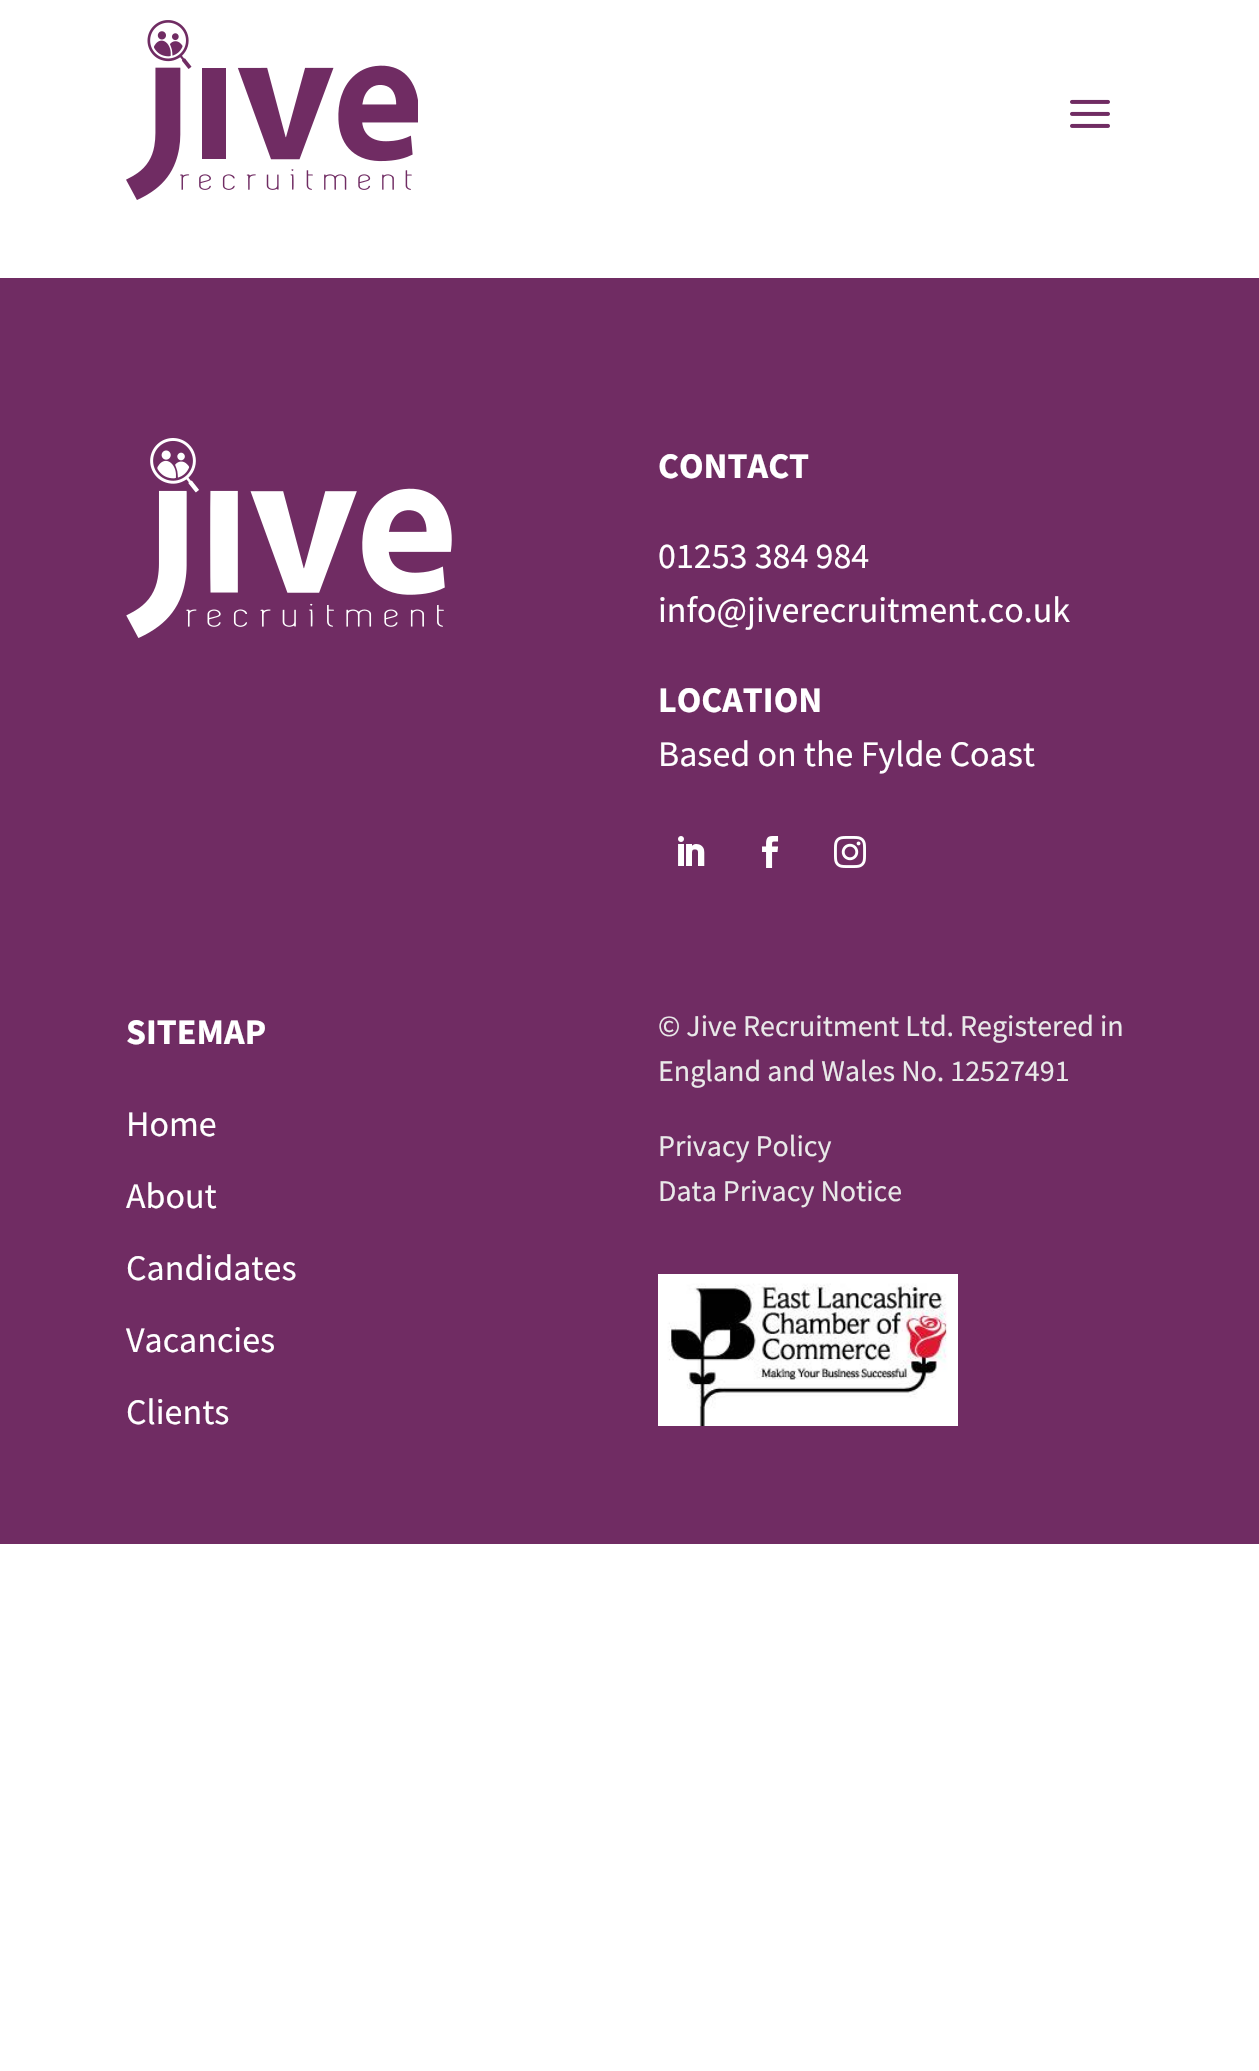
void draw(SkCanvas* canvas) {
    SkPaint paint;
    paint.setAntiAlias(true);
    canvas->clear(0xFFFFFFFF);
    canvas->drawImageRect(SkImages::DeferredFromEncodedData(SkData::MakeFromFileName("img1.png")), SkRect::MakeXYWH(126, 20, 292, 180), SkSamplingOptions());
    canvas->drawImageRect(SkImages::DeferredFromEncodedData(SkData::MakeFromFileName("img2.png")), SkRect::MakeXYWH(1070, 99, 40, 29), SkSamplingOptions());
    paint.setColor(0xFF702C63);
    canvas->drawRect(SkRect::MakeXYWH(0, 278, 1259, 1266), paint);
    canvas->drawImageRect(SkImages::DeferredFromEncodedData(SkData::MakeFromFileName("img3.png")), SkRect::MakeXYWH(126, 438, 326, 200), SkSamplingOptions());
    SkFont font1(fontMgr->matchFamilyStyle("Source Sans Pro", SkFontStyle::Bold()), 36);
    font1.setSubpixel(true);
    paint.setColor(0xFFFFFFFF);
    canvas->drawString("CONTACT", 658, 478, font1, paint);
    SkFont font2(fontMgr->matchFamilyStyle("Source Sans Pro", SkFontStyle::Normal()), 36);
    font2.setSubpixel(true);
    canvas->drawString("01253 384 984", 658, 568, font2, paint);
    canvas->drawString("info@jiverecruitment.co.uk", 658, 622, font2, paint);
    canvas->drawString("LOCATION", 658, 712, font1, paint);
    canvas->drawString("Based on the Fylde Coast", 658, 766, font2, paint);
    canvas->drawImageRect(SkImages::DeferredFromEncodedData(SkData::MakeFromFileName("img4.png")), SkRect::MakeXYWH(678, 836, 27, 30), SkSamplingOptions());
    canvas->drawImageRect(SkImages::DeferredFromEncodedData(SkData::MakeFromFileName("img5.png")), SkRect::MakeXYWH(762, 836, 17, 32), SkSamplingOptions());
    canvas->drawImageRect(SkImages::DeferredFromEncodedData(SkData::MakeFromFileName("img6.png")), SkRect::MakeXYWH(834, 836, 32, 32), SkSamplingOptions());
    canvas->drawString("SITEMAP", 126, 1044, font1, paint);
    canvas->drawString("Home", 126, 1136, font2, paint);
    canvas->drawString("About", 126, 1208, font2, paint);
    canvas->drawString("Candidates", 126, 1280, font2, paint);
    canvas->drawString("Vacancies", 126, 1352, font2, paint);
    canvas->drawString("Clients", 126, 1424, font2, paint);
    SkFont font3(fontMgr->matchFamilyStyle("Source Sans Pro", SkFontStyle::Normal()), 30);
    font3.setSubpixel(true);
    paint.setColor(0xFFE9E9E9);
    canvas->drawString("© Jive Recruitment Ltd. Registered in", 658, 1036, font3, paint);
    canvas->drawString("England and Wales No. 12527491", 658, 1081, font3, paint);
    canvas->drawString("Privacy Policy", 658, 1156, font3, paint);
    canvas->drawString("Data Privacy Notice", 658, 1201, font3, paint);
    canvas->drawImageRect(SkImages::DeferredFromEncodedData(SkData::MakeFromFileName("img7.png")), SkRect::MakeXYWH(658, 1274, 300, 152), SkSamplingOptions());
}
